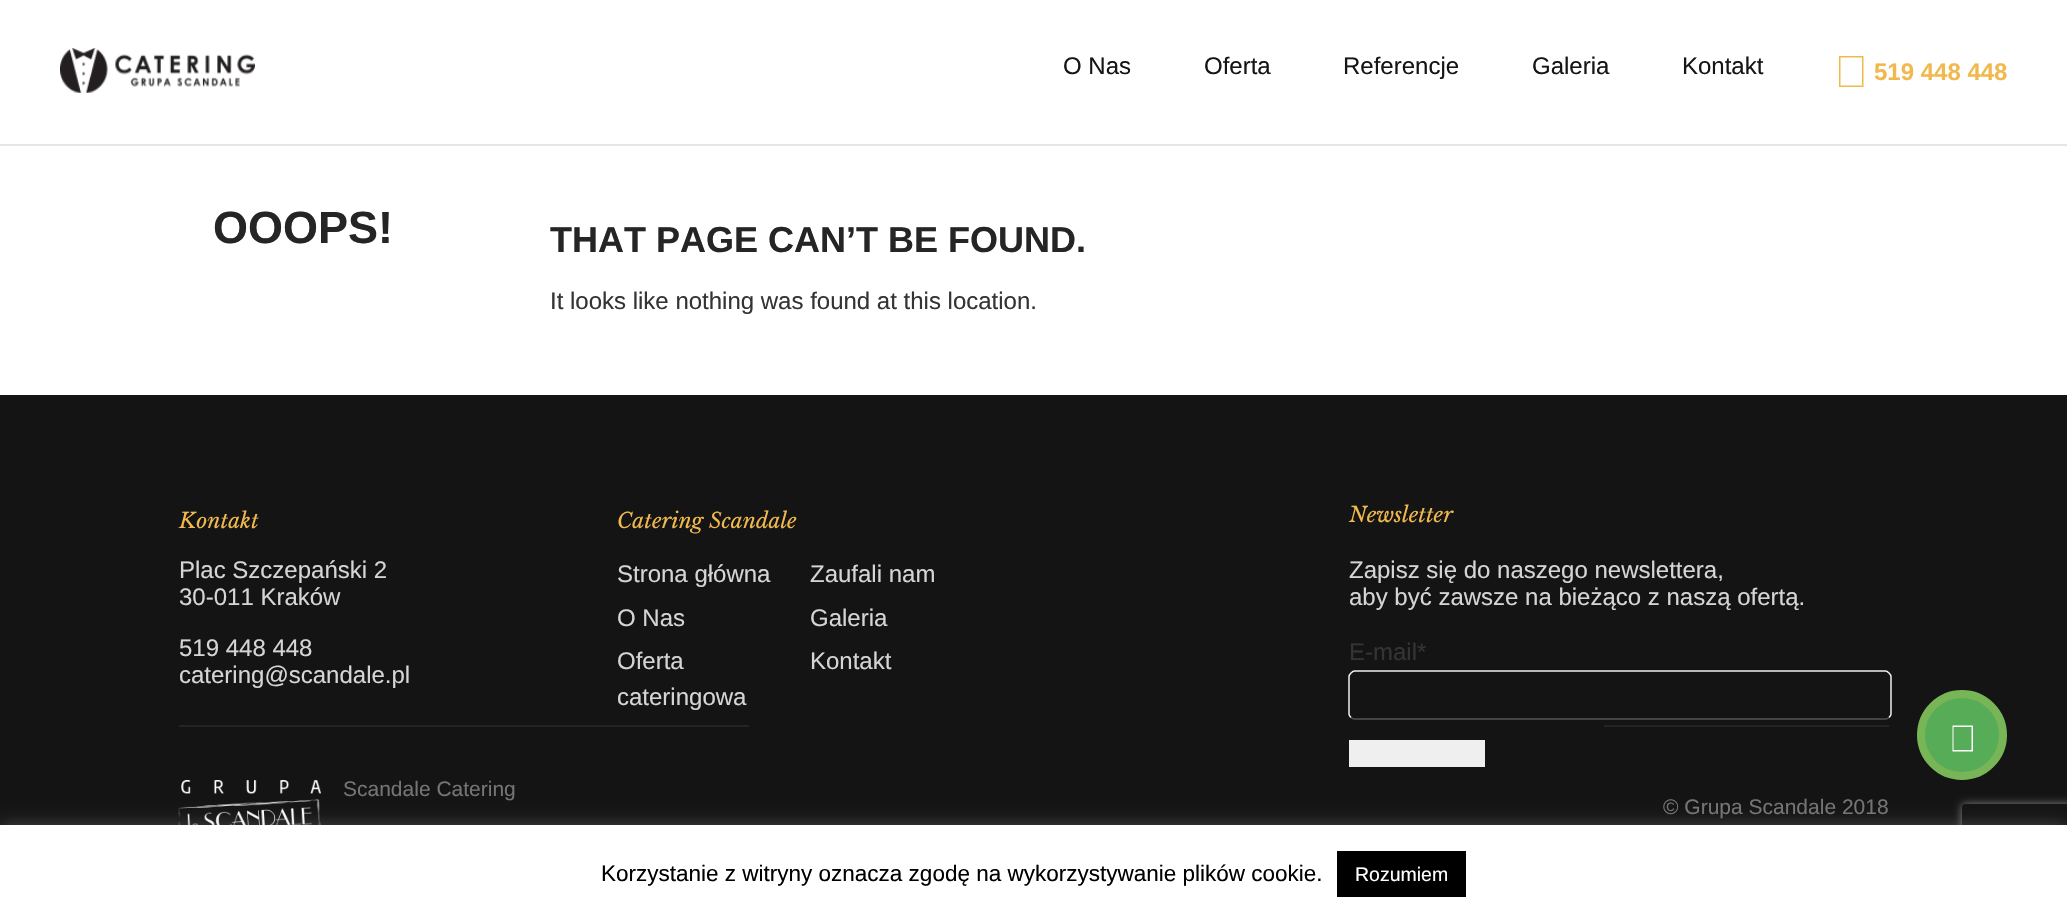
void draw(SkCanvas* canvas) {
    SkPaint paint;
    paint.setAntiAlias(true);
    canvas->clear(0xFFFFFFFF);
    paint.setColor(0xFFE5E5E5);
    canvas->drawRect(SkRect::MakeXYWH(0, 144, 2067, 2), paint);
    canvas->drawImageRect(SkImages::DeferredFromEncodedData(SkData::MakeFromFileName("img1.png")), SkRect::MakeXYWH(60, 48, 195, 45), SkSamplingOptions());
    SkFont font1(fontMgr->matchFamilyStyle("Liberation Sans", SkFontStyle::Normal()), 24);
    font1.setSubpixel(true);
    paint.setColor(0xFF151515);
    canvas->drawString("O Nas", 1063, 74, font1, paint);
    canvas->drawString("Oferta", 1204, 74, font1, paint);
    canvas->drawString("Referencje", 1343, 74, font1, paint);
    canvas->drawString("Galeria", 1532, 74, font1, paint);
    canvas->drawString("Kontakt", 1682, 74, font1, paint);
    paint.setColor(0xFFF1B94D);
    canvas->drawPath(SkPathBuilder().moveTo(1839, 56).lineTo(1863.5f, 56).lineTo(1863.5f, 87).lineTo(1839, 87).close().moveTo(1840.5f, 57.5f).lineTo(1840.5f, 85.5f).lineTo(1862, 85.5f).lineTo(1862, 57.5f).close().detach(), paint);
    SkFont font2(fontMgr->matchFamilyStyle("Liberation Sans", SkFontStyle::Bold()), 24);
    font2.setSubpixel(true);
    canvas->drawString("519 448 448", 1874, 80, font2, paint);
    SkFont font3(fontMgr->matchFamilyStyle("Liberation Sans", SkFontStyle::Bold()), 45);
    font3.setSubpixel(true);
    paint.setColor(0xFF252525);
    canvas->drawString("OOOPS!", 213, 243, font3, paint);
    SkFont font4(fontMgr->matchFamilyStyle("Liberation Sans", SkFontStyle::Bold()), 36);
    font4.setSubpixel(true);
    canvas->drawString("THAT PAGE CAN’T BE FOUND.", 550, 252, font4, paint);
    paint.setColor(0xFF343434);
    canvas->drawString("It looks like nothing was found at this location.", 550, 309, font1, paint);
    paint.setColor(0xFF141414);
    canvas->drawRect(SkRect::MakeXYWH(0, 395, 2067, 430), paint);
    SkFont font5(fontMgr->matchFamilyStyle("Libre Baskerville", SkFontStyle::Italic()), 21);
    font5.setSubpixel(true);
    paint.setColor(0xFFF1B94D);
    canvas->drawString("Kontakt", 179, 528, font5, paint);
    paint.setColor(0xFFD5D5D5);
    canvas->drawString("Plac Szczepański 2", 179, 578, font1, paint);
    canvas->drawString("30-011 Kraków", 179, 605, font1, paint);
    canvas->drawString("519 448 448", 179, 656, font1, paint);
    canvas->drawString("catering@scandale.pl", 179, 683, font1, paint);
    paint.setColor(0xFFF1B94D);
    canvas->drawString("Catering Scandale", 617, 528, font5, paint);
    paint.setColor(0xFFD5D5D5);
    canvas->drawString("Strona główna", 617, 582, font1, paint);
    canvas->drawString("Zaufali nam", 810, 582, font1, paint);
    canvas->drawString("O Nas", 617, 626, font1, paint);
    canvas->drawString("Galeria", 810, 626, font1, paint);
    canvas->drawString("Oferta", 617, 669, font1, paint);
    canvas->drawString("cateringowa", 617, 705, font1, paint);
    canvas->drawString("Kontakt", 810, 669, font1, paint);
    paint.setColor(0xFFF1B94D);
    canvas->drawString("Newsletter", 1349, 522, font5, paint);
    paint.setColor(0xFFD5D5D5);
    canvas->drawString("Zapisz się do naszego newslettera,", 1349, 578, font1, paint);
    canvas->drawString("aby być zawsze na bieżąco z naszą ofertą.", 1349, 605, font1, paint);
    paint.setColor(0xFF343434);
    canvas->drawString("E-mail*", 1349, 660, font1, paint);
    paint.setStyle(SkPaint::kStroke_Style);
    paint.setStrokeWidth(1.5f);
    paint.setColor(0xFF545454);
    canvas->drawPath(SkPathBuilder().moveTo(1889, 717.5f).cubicTo(1888, 718.5f, 1887, 719, 1885.5f, 719).lineTo(1354.5f, 719).cubicTo(1353, 719, 1352, 718.5f, 1351, 717.5f).detach(), paint);
    paint.setColor(0xFFEEEEEE);
    canvas->drawPath(SkPathBuilder().moveTo(1351, 717.5f).cubicTo(1350, 716.5f, 1349, 715.5f, 1349, 714).lineTo(1349, 676.5f).cubicTo(1349, 675, 1350, 674, 1351, 673).cubicTo(1352, 672, 1353, 671, 1354.5f, 671).lineTo(1885.5f, 671).cubicTo(1887, 671, 1888, 672, 1889, 673).cubicTo(1890, 674, 1891, 675, 1891, 676.5f).lineTo(1891, 714).cubicTo(1891, 715.5f, 1890, 716.5f, 1889, 717.5f).detach(), paint);
    paint.setStyle(SkPaint::kFill_Style);
    paint.setColor(0xFFEFEFEF);
    canvas->drawRect(SkRect::MakeXYWH(1349, 740, 136, 27), paint);
    paint.setColor(0xFF242424);
    canvas->drawRect(SkRect::MakeXYWH(179, 725, 570, 2), paint);
    canvas->drawRect(SkRect::MakeXYWH(1604, 725, 285, 2), paint);
    canvas->drawImageRect(SkImages::DeferredFromEncodedData(SkData::MakeFromFileName("img2.png")), SkRect::MakeXYWH(178, 780, 143, 45), SkSamplingOptions());
    SkFont font6(fontMgr->matchFamilyStyle("Liberation Sans", SkFontStyle::Normal()), 21);
    font6.setSubpixel(true);
    paint.setColor(0xFF747474);
    canvas->drawString("Scandale Catering", 343, 796, font6, paint);
    canvas->drawString("© Grupa Scandale 2018", 1663, 814, font6, paint);
    paint.setColor(0xFF57AC58);
    canvas->drawCircle(1962, 735, 41, paint);
    paint.setStyle(SkPaint::kStroke_Style);
    paint.setStrokeWidth(8);
    paint.setColor(0xFF77B557);
    canvas->drawCircle(1962, 735, 41, paint);
    paint.setStyle(SkPaint::kFill_Style);
    paint.setColor(0xFFFFFFFF);
    canvas->drawPath(SkPathBuilder().moveTo(1952.5f, 725.5f).lineTo(1973, 725.5f).lineTo(1973, 751.5f).lineTo(1952.5f, 751.5f).close().moveTo(1953.5f, 727).lineTo(1953.5f, 750).lineTo(1971.5f, 750).lineTo(1971.5f, 727).close().detach(), paint);
    paint.setColor(0x4DACABAB);
    paint.setMaskFilter(SkMaskFilter::MakeBlur(kNormal_SkBlurStyle, 7.5f));
    canvas->drawRect(SkRect::MakeXYWH(0, 824, 2067, 90), paint);
    paint.setMaskFilter(nullptr);
    canvas->save();
    canvas->clipPath(SkPathBuilder(SkPathFillType::kEvenOdd).moveTo(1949, 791).lineTo(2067, 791).lineTo(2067, 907).lineTo(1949, 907).close().moveTo(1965, 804).lineTo(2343, 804).cubicTo(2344.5f, 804, 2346, 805.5f, 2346, 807).lineTo(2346, 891).cubicTo(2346, 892.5f, 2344.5f, 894, 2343, 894).lineTo(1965, 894).cubicTo(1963.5f, 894, 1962, 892.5f, 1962, 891).lineTo(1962, 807).cubicTo(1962, 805.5f, 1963.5f, 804, 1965, 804).close().detach(), true);
    paint.setColor(0xFF808080);
    paint.setMaskFilter(SkMaskFilter::MakeBlur(kNormal_SkBlurStyle, 4));
    canvas->drawRoundRect(SkRect::MakeXYWH(1962, 804, 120, 90), 3, 3, paint);
    paint.setMaskFilter(nullptr);
    canvas->restore();
    paint.setColor(0xFFFFFFFF);
    canvas->drawRect(SkRect::MakeXYWH(0, 825, 2067, 90), paint);
    SkFont font7(fontMgr->matchFamilyStyle("Liberation Sans", SkFontStyle::Normal()), 22.5f);
    font7.setSubpixel(true);
    paint.setColor(0xFF000000);
    canvas->drawString("Korzystanie z witryny oznacza zgodę na wykorzystywanie plików cookie.", 601, 881, font7, paint);
    canvas->drawRect(SkRect::MakeXYWH(1337, 851, 129, 46), paint);
    SkFont font8(fontMgr->matchFamilyStyle("Liberation Sans", SkFontStyle::Normal()), 19.5f);
    font8.setSubpixel(true);
    paint.setColor(0xFFFFFFFF);
    canvas->drawString("Rozumiem", 1355, 881, font8, paint);
}
